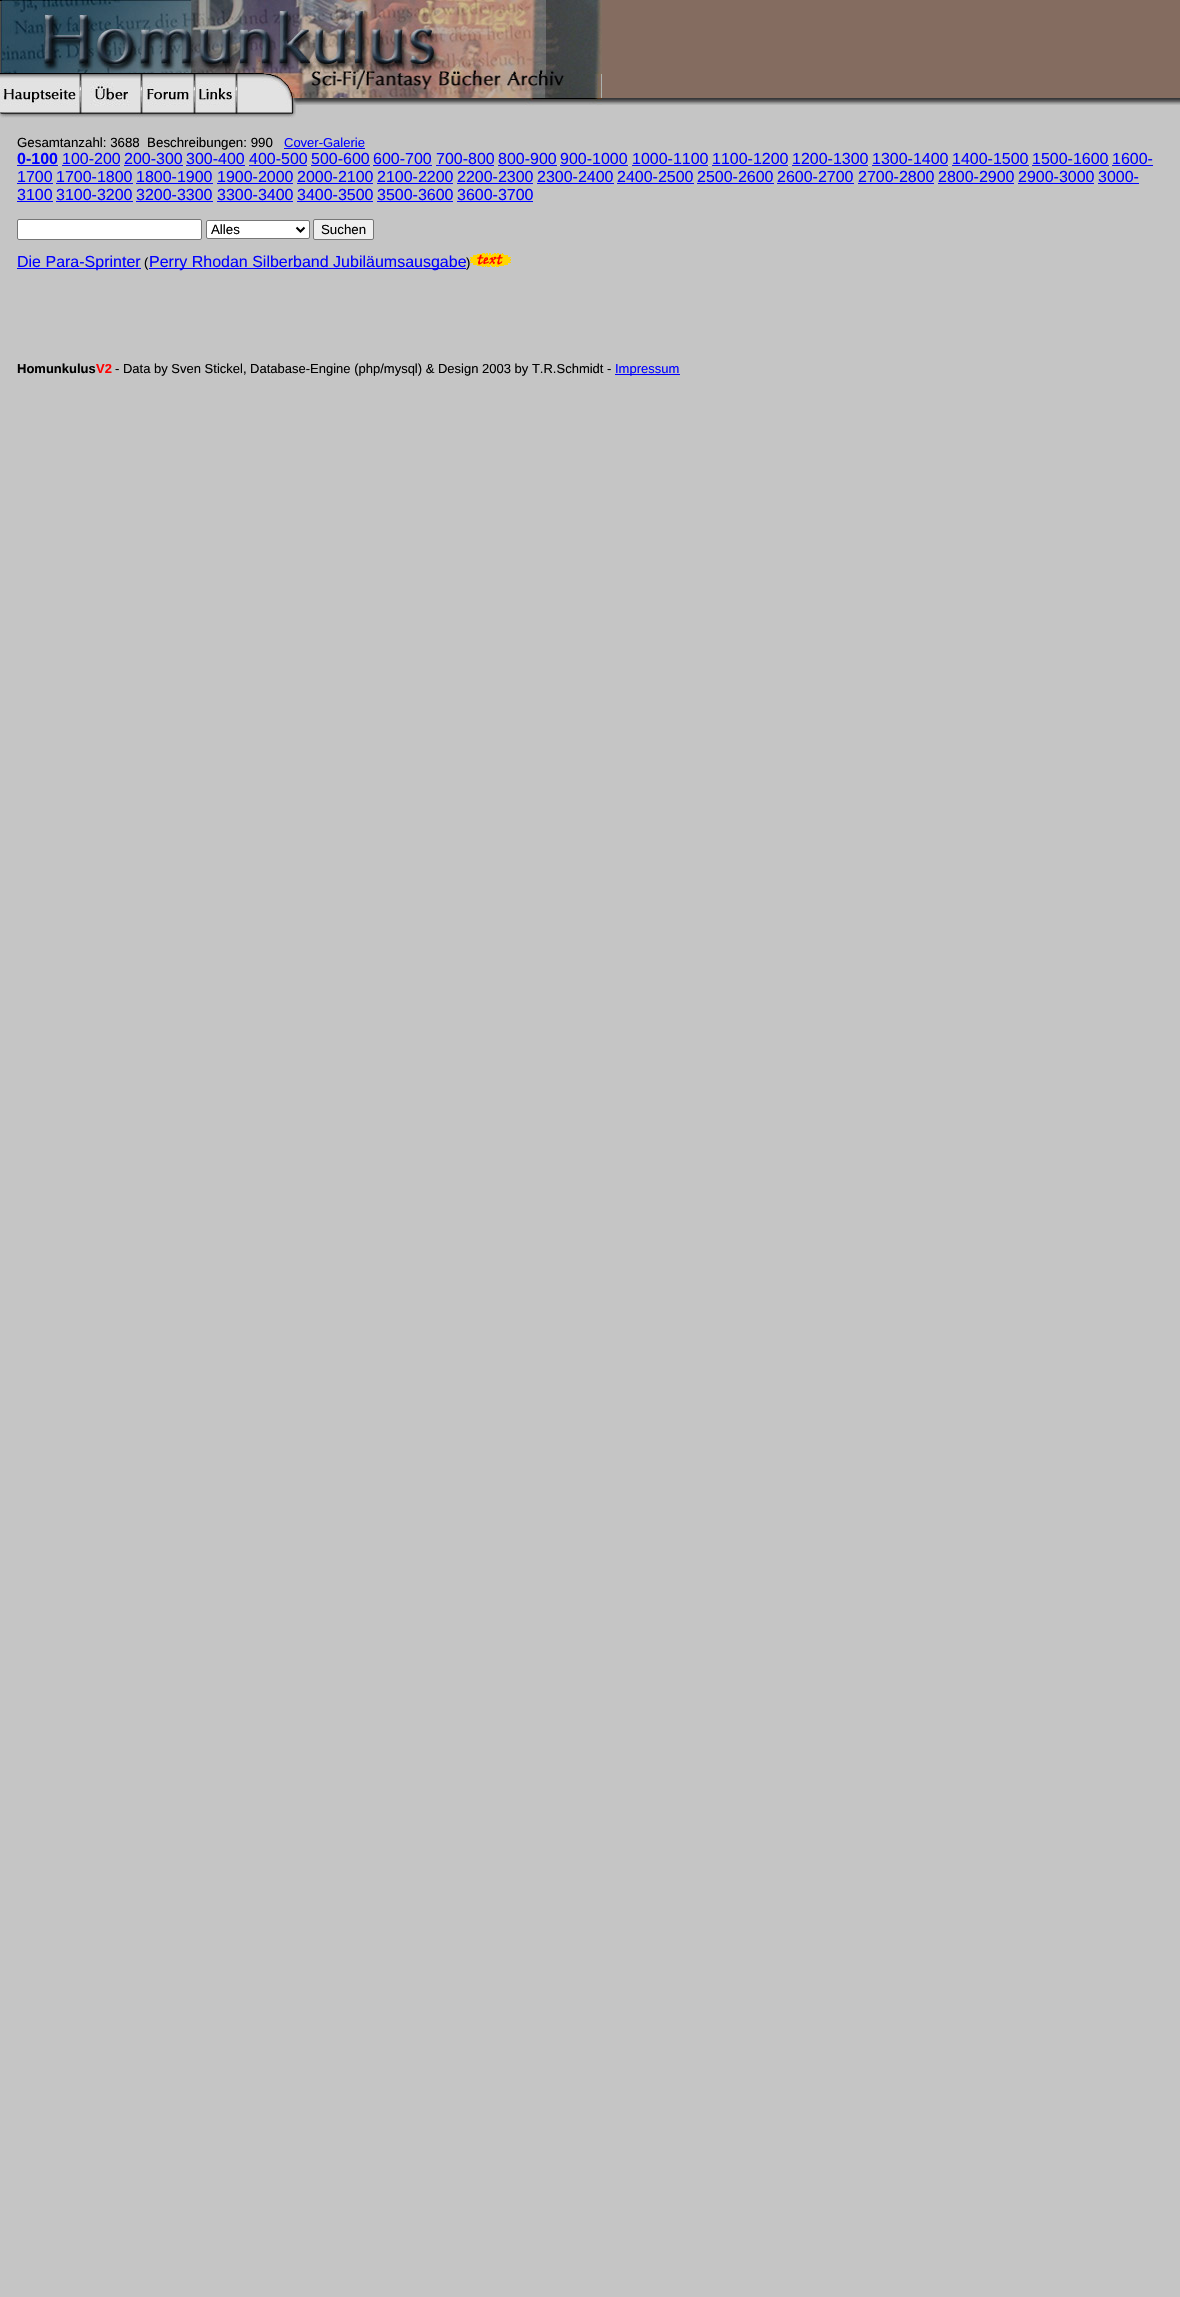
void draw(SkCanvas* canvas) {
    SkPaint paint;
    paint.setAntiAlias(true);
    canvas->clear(0xFFC5C5C5);
    canvas->drawImageRect(SkImages::DeferredFromEncodedData(SkData::MakeFromFileName("img1.png")), SkRect::MakeXYWH(602, 0, 578, 105), SkSamplingOptions());
    canvas->drawImageRect(SkImages::DeferredFromEncodedData(SkData::MakeFromFileName("img2.png")), SkRect::MakeXYWH(0, 0, 602, 74), SkSamplingOptions());
    canvas->drawImageRect(SkImages::DeferredFromEncodedData(SkData::MakeFromFileName("img3.png")), SkRect::MakeXYWH(0, 74, 79, 38), SkSamplingOptions());
    canvas->drawImageRect(SkImages::DeferredFromEncodedData(SkData::MakeFromFileName("img4.png")), SkRect::MakeXYWH(79, 74, 3, 38), SkSamplingOptions());
    canvas->drawImageRect(SkImages::DeferredFromEncodedData(SkData::MakeFromFileName("img5.png")), SkRect::MakeXYWH(82, 74, 58, 38), SkSamplingOptions());
    canvas->drawImageRect(SkImages::DeferredFromEncodedData(SkData::MakeFromFileName("img4.png")), SkRect::MakeXYWH(140, 74, 3, 38), SkSamplingOptions());
    canvas->drawImageRect(SkImages::DeferredFromEncodedData(SkData::MakeFromFileName("img6.png")), SkRect::MakeXYWH(143, 74, 50, 38), SkSamplingOptions());
    canvas->drawImageRect(SkImages::DeferredFromEncodedData(SkData::MakeFromFileName("img4.png")), SkRect::MakeXYWH(193, 74, 3, 38), SkSamplingOptions());
    canvas->drawImageRect(SkImages::DeferredFromEncodedData(SkData::MakeFromFileName("img7.png")), SkRect::MakeXYWH(196, 74, 39, 38), SkSamplingOptions());
    canvas->drawImageRect(SkImages::DeferredFromEncodedData(SkData::MakeFromFileName("img4.png")), SkRect::MakeXYWH(235, 74, 3, 38), SkSamplingOptions());
    canvas->drawImageRect(SkImages::DeferredFromEncodedData(SkData::MakeFromFileName("img8.png")), SkRect::MakeXYWH(238, 74, 364, 38), SkSamplingOptions());
    canvas->drawImageRect(SkImages::DeferredFromEncodedData(SkData::MakeFromFileName("img9.png")), SkRect::MakeXYWH(0, 112, 296, 6), SkSamplingOptions());
    SkFont font1(fontMgr->matchFamilyStyle("Liberation Sans", SkFontStyle::Normal()), 13.3f);
    font1.setSubpixel(true);
    paint.setColor(0xFF000000);
    canvas->drawString("Gesamtanzahl: 3688  Beschreibungen: 990", 17, 147, font1, paint);
    SkFont font2(fontMgr->matchFamilyStyle("Liberation Sans", SkFontStyle::Normal()), 13);
    font2.setSubpixel(true);
    paint.setColor(0xFF0000FF);
    canvas->drawString("Cover-Galerie", 284, 147, font2, paint);
    canvas->drawRect(SkRect::MakeXYWH(284, 148, 81, 1), paint);
    SkFont font3(fontMgr->matchFamilyStyle("Liberation Sans", SkFontStyle::Bold()), 16);
    font3.setSubpixel(true);
    canvas->drawString("0-100", 17, 164, font3, paint);
    canvas->drawRect(SkRect::MakeXYWH(17, 165, 41, 1), paint);
    SkFont font4(fontMgr->matchFamilyStyle("Liberation Sans", SkFontStyle::Normal()), 16);
    font4.setSubpixel(true);
    canvas->drawString("100-200", 62, 164, font4, paint);
    canvas->drawRect(SkRect::MakeXYWH(62, 165, 58, 1), paint);
    canvas->drawString("200-300", 124, 164, font4, paint);
    canvas->drawRect(SkRect::MakeXYWH(124, 165, 59, 1), paint);
    canvas->drawString("300-400", 186, 164, font4, paint);
    canvas->drawRect(SkRect::MakeXYWH(186, 165, 59, 1), paint);
    canvas->drawString("400-500", 249, 164, font4, paint);
    canvas->drawRect(SkRect::MakeXYWH(249, 165, 58, 1), paint);
    canvas->drawString("500-600", 311, 164, font4, paint);
    canvas->drawRect(SkRect::MakeXYWH(311, 165, 59, 1), paint);
    canvas->drawString("600-700", 373, 164, font4, paint);
    canvas->drawRect(SkRect::MakeXYWH(373, 165, 59, 1), paint);
    canvas->drawString("700-800", 436, 164, font4, paint);
    canvas->drawRect(SkRect::MakeXYWH(436, 165, 58, 1), paint);
    canvas->drawString("800-900", 498, 164, font4, paint);
    canvas->drawRect(SkRect::MakeXYWH(498, 165, 59, 1), paint);
    canvas->drawString("900-1000", 560, 164, font4, paint);
    canvas->drawRect(SkRect::MakeXYWH(560, 165, 68, 1), paint);
    canvas->drawString("1000-1100", 632, 164, font4, paint);
    canvas->drawRect(SkRect::MakeXYWH(632, 165, 76, 1), paint);
    canvas->drawString("1100-1200", 712, 164, font4, paint);
    canvas->drawRect(SkRect::MakeXYWH(712, 165, 76, 1), paint);
    canvas->drawString("1200-1300", 792, 164, font4, paint);
    canvas->drawRect(SkRect::MakeXYWH(792, 165, 76, 1), paint);
    canvas->drawString("1300-1400", 872, 164, font4, paint);
    canvas->drawRect(SkRect::MakeXYWH(872, 165, 76, 1), paint);
    canvas->drawString("1400-1500", 952, 164, font4, paint);
    canvas->drawRect(SkRect::MakeXYWH(952, 165, 77, 1), paint);
    canvas->drawString("1500-1600", 1032, 164, font4, paint);
    canvas->drawRect(SkRect::MakeXYWH(1032, 165, 77, 1), paint);
    canvas->drawString("1600-", 1112, 164, font4, paint);
    canvas->drawRect(SkRect::MakeXYWH(1112, 165, 41, 1), paint);
    canvas->drawString("1700", 17, 182, font4, paint);
    canvas->drawRect(SkRect::MakeXYWH(17, 183, 36, 1), paint);
    canvas->drawString("1700-1800", 56, 182, font4, paint);
    canvas->drawRect(SkRect::MakeXYWH(56, 183, 77, 1), paint);
    canvas->drawString("1800-1900", 136, 182, font4, paint);
    canvas->drawRect(SkRect::MakeXYWH(136, 183, 77, 1), paint);
    canvas->drawString("1900-2000", 217, 182, font4, paint);
    canvas->drawRect(SkRect::MakeXYWH(217, 183, 76, 1), paint);
    canvas->drawString("2000-2100", 297, 182, font4, paint);
    canvas->drawRect(SkRect::MakeXYWH(297, 183, 76, 1), paint);
    canvas->drawString("2100-2200", 377, 182, font4, paint);
    canvas->drawRect(SkRect::MakeXYWH(377, 183, 76, 1), paint);
    canvas->drawString("2200-2300", 457, 182, font4, paint);
    canvas->drawRect(SkRect::MakeXYWH(457, 183, 76, 1), paint);
    canvas->drawString("2300-2400", 537, 182, font4, paint);
    canvas->drawRect(SkRect::MakeXYWH(537, 183, 77, 1), paint);
    canvas->drawString("2400-2500", 617, 182, font4, paint);
    canvas->drawRect(SkRect::MakeXYWH(617, 183, 77, 1), paint);
    canvas->drawString("2500-2600", 697, 182, font4, paint);
    canvas->drawRect(SkRect::MakeXYWH(697, 183, 77, 1), paint);
    canvas->drawString("2600-2700", 777, 182, font4, paint);
    canvas->drawRect(SkRect::MakeXYWH(777, 183, 77, 1), paint);
    canvas->drawString("2700-2800", 858, 182, font4, paint);
    canvas->drawRect(SkRect::MakeXYWH(858, 183, 76, 1), paint);
    canvas->drawString("2800-2900", 938, 182, font4, paint);
    canvas->drawRect(SkRect::MakeXYWH(938, 183, 76, 1), paint);
    canvas->drawString("2900-3000", 1018, 182, font4, paint);
    canvas->drawRect(SkRect::MakeXYWH(1018, 183, 76, 1), paint);
    canvas->drawString("3000-", 1098, 182, font4, paint);
    canvas->drawRect(SkRect::MakeXYWH(1098, 183, 41, 1), paint);
    canvas->drawString("3100", 17, 200, font4, paint);
    canvas->drawRect(SkRect::MakeXYWH(17, 201, 36, 1), paint);
    canvas->drawString("3100-3200", 56, 200, font4, paint);
    canvas->drawRect(SkRect::MakeXYWH(56, 201, 77, 1), paint);
    canvas->drawString("3200-3300", 136, 200, font4, paint);
    canvas->drawRect(SkRect::MakeXYWH(136, 201, 77, 1), paint);
    canvas->drawString("3300-3400", 217, 200, font4, paint);
    canvas->drawRect(SkRect::MakeXYWH(217, 201, 76, 1), paint);
    canvas->drawString("3400-3500", 297, 200, font4, paint);
    canvas->drawRect(SkRect::MakeXYWH(297, 201, 76, 1), paint);
    canvas->drawString("3500-3600", 377, 200, font4, paint);
    canvas->drawRect(SkRect::MakeXYWH(377, 201, 76, 1), paint);
    canvas->drawString("3600-3700", 457, 200, font4, paint);
    canvas->drawRect(SkRect::MakeXYWH(457, 201, 76, 1), paint);
    paint.setColor(0xFFFFFFFF);
    canvas->drawRoundRect(SkRect::MakeXYWH(17.5f, 219.5f, 184, 20), 1.5f, 1.5f, paint);
    paint.setStyle(SkPaint::kStroke_Style);
    paint.setStrokeWidth(1);
    paint.setColor(0xFF767676);
    canvas->drawRoundRect(SkRect::MakeXYWH(17.5f, 219.5f, 184, 20), 1.5f, 1.5f, paint);
    paint.setStyle(SkPaint::kFill_Style);
    paint.setColor(0xFFFFFFFF);
    canvas->drawRoundRect(SkRect::MakeXYWH(206.5f, 220.5f, 103, 18), 1.5f, 1.5f, paint);
    paint.setStyle(SkPaint::kStroke_Style);
    paint.setColor(0xFF767676);
    canvas->drawRoundRect(SkRect::MakeXYWH(206.5f, 220.5f, 103, 18), 1.5f, 1.5f, paint);
    paint.setStrokeWidth(2);
    paint.setColor(0xFF000000);
    canvas->drawPath(SkPathBuilder().moveTo(296.5f, 227.5f).lineTo(300.5f, 231.5f).lineTo(304.5f, 227.5f).detach(), paint);
    paint.setStyle(SkPaint::kFill_Style);
    canvas->drawString("Alles", 211, 234, font1, paint);
    paint.setColor(0xFFEFEFEF);
    canvas->drawRoundRect(SkRect::MakeXYWH(313.5f, 219.5f, 60, 20), 1.5f, 1.5f, paint);
    paint.setStyle(SkPaint::kStroke_Style);
    paint.setStrokeWidth(1);
    paint.setColor(0xFF767676);
    canvas->drawRoundRect(SkRect::MakeXYWH(313.5f, 219.5f, 60, 20), 1.5f, 1.5f, paint);
    paint.setStyle(SkPaint::kFill_Style);
    paint.setColor(0xFF000000);
    canvas->drawString("Suchen", 321, 234, font1, paint);
    paint.setColor(0xFF0000FF);
    canvas->drawRect(SkRect::MakeXYWH(17, 268, 124, 1), paint);
    canvas->drawString("Die Para-Sprinter", 17, 267, font4, paint);
    paint.setColor(0xFF000000);
    canvas->drawString("(", 144, 267, font2, paint);
    paint.setColor(0xFF0000FF);
    canvas->drawRect(SkRect::MakeXYWH(149, 268, 317, 1), paint);
    canvas->drawString("Perry Rhodan Silberband Jubiläumsausgabe", 149, 267, font4, paint);
    paint.setColor(0xFF000000);
    canvas->drawString(")", 466, 267, font2, paint);
    canvas->drawImageRect(SkImages::DeferredFromEncodedData(SkData::MakeFromFileName("img10.png")), SkRect::MakeXYWH(470, 253, 41, 14), SkSamplingOptions());
    SkFont font5(fontMgr->matchFamilyStyle("Liberation Sans", SkFontStyle::Bold()), 13);
    font5.setSubpixel(true);
    canvas->drawString("Homunkulus", 17, 373, font5, paint);
    paint.setColor(0xFFFF0000);
    canvas->drawString("V2", 96, 373, font5, paint);
    paint.setColor(0xFF000000);
    canvas->drawString("- Data by Sven Stickel, Database-Engine (php/mysql) & Design 2003 by T.R.Schmidt -", 115, 373, font2, paint);
    paint.setColor(0xFF0000FF);
    canvas->drawRect(SkRect::MakeXYWH(615, 374, 65, 1), paint);
    canvas->drawString("Impressum", 615, 373, font2, paint);
}
